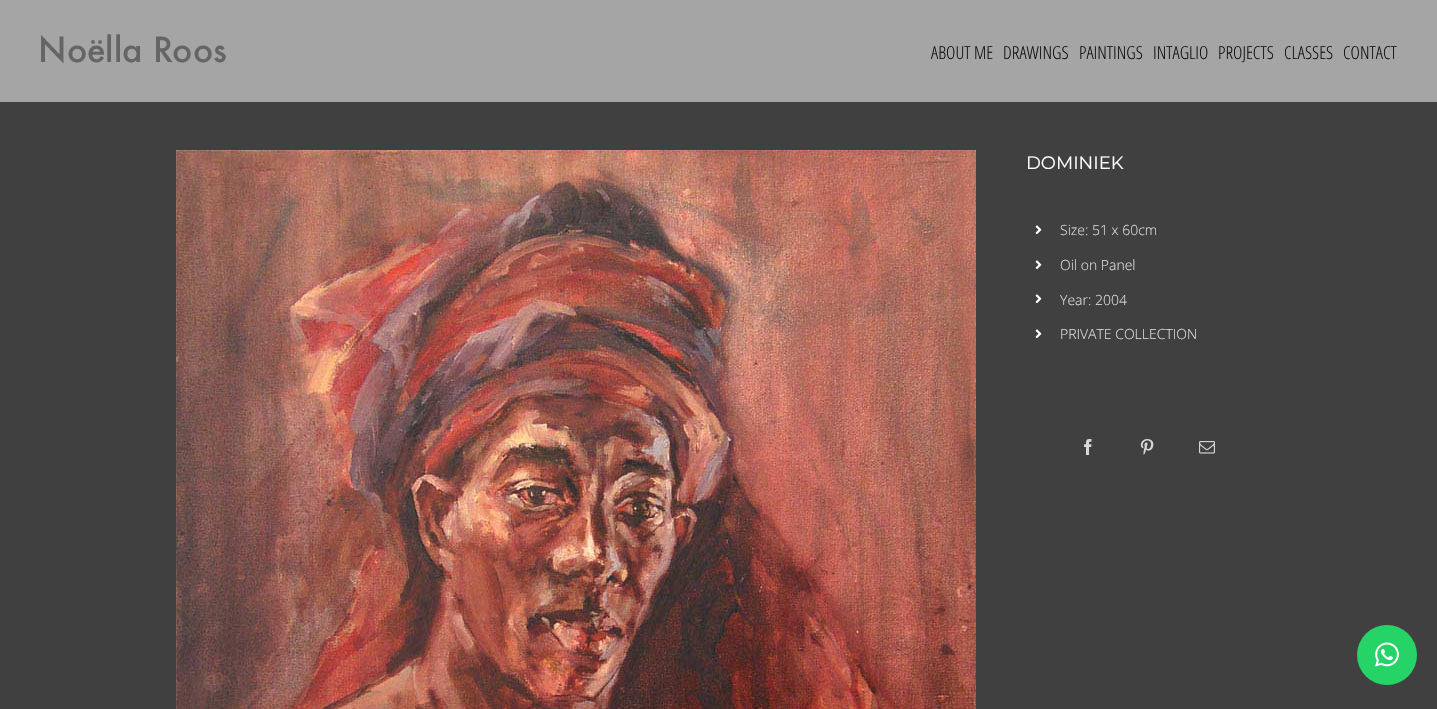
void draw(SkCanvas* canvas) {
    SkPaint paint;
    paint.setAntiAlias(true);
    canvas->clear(0xFF404040);
    paint.setColor(0xFFA5A5A5);
    canvas->drawRect(SkRect::MakeXYWH(0, 0, 1437, 102), paint);
    canvas->drawImageRect(SkImages::DeferredFromEncodedData(SkData::MakeFromFileName("img1.png")), SkRect::MakeXYWH(41, 34, 185, 30), SkSamplingOptions());
    SkFont font1(fontMgr->matchFamilyStyle("Open Sans Condensed", SkFontStyle(300, SkFontStyle::kNormal_Width, SkFontStyle::kUpright_Slant)), 18);
    font1.setSubpixel(true);
    paint.setColor(0xFF111111);
    canvas->drawString("ABOUT ME", 931, 59, font1, paint);
    canvas->drawString("DRAWINGS", 1003, 59, font1, paint);
    canvas->drawString("PAINTINGS", 1079, 59, font1, paint);
    canvas->drawString("INTAGLIO", 1153, 59, font1, paint);
    canvas->drawString("PROJECTS", 1218, 59, font1, paint);
    canvas->drawString("CLASSES", 1284, 59, font1, paint);
    canvas->drawString("CONTACT", 1343, 59, font1, paint);
    canvas->drawImageRect(SkImages::DeferredFromEncodedData(SkData::MakeFromFileName("img2.png")), SkRect::MakeXYWH(176, 150, 800, 559), SkSamplingOptions());
    SkFont font2(fontMgr->matchFamilyStyle("Montserrat", SkFontStyle(100, SkFontStyle::kNormal_Width, SkFontStyle::kUpright_Slant)), 18);
    font2.setSubpixel(true);
    paint.setColor(0xFFFFFFFF);
    canvas->drawString("DOMINIEK", 1026, 169, font2, paint);
    canvas->drawImageRect(SkImages::DeferredFromEncodedData(SkData::MakeFromFileName("img3.png")), SkRect::MakeXYWH(1035, 225, 7, 10), SkSamplingOptions());
    SkFont font3(fontMgr->matchFamilyStyle("Open Sans", SkFontStyle(300, SkFontStyle::kNormal_Width, SkFontStyle::kUpright_Slant)), 14);
    font3.setSubpixel(true);
    paint.setColor(0xFFDDDDDD);
    canvas->drawString("Size: 51 x 60cm", 1060, 235, font3, paint);
    canvas->drawImageRect(SkImages::DeferredFromEncodedData(SkData::MakeFromFileName("img3.png")), SkRect::MakeXYWH(1035, 260, 7, 10), SkSamplingOptions());
    canvas->drawString("Oil on Panel", 1060, 270, font3, paint);
    canvas->drawImageRect(SkImages::DeferredFromEncodedData(SkData::MakeFromFileName("img3.png")), SkRect::MakeXYWH(1035, 294, 7, 10), SkSamplingOptions());
    canvas->drawString("Year: 2004", 1060, 305, font3, paint);
    canvas->drawImageRect(SkImages::DeferredFromEncodedData(SkData::MakeFromFileName("img3.png")), SkRect::MakeXYWH(1035, 329, 7, 10), SkSamplingOptions());
    canvas->drawString("PRIVATE COLLECTION", 1060, 339, font3, paint);
    canvas->drawImageRect(SkImages::DeferredFromEncodedData(SkData::MakeFromFileName("img4.png")), SkRect::MakeXYWH(1084, 439, 8, 16), SkSamplingOptions());
    canvas->drawImageRect(SkImages::DeferredFromEncodedData(SkData::MakeFromFileName("img5.png")), SkRect::MakeXYWH(1140, 439, 14, 16), SkSamplingOptions());
    canvas->drawImageRect(SkImages::DeferredFromEncodedData(SkData::MakeFromFileName("img6.png")), SkRect::MakeXYWH(1199, 441, 16, 13), SkSamplingOptions());
    paint.setColor(0xFF25D366);
    canvas->drawCircle(1387, 655, 30, paint);
    canvas->drawImageRect(SkImages::DeferredFromEncodedData(SkData::MakeFromFileName("img7.png")), SkRect::MakeXYWH(1375, 642, 24, 25), SkSamplingOptions());
}
